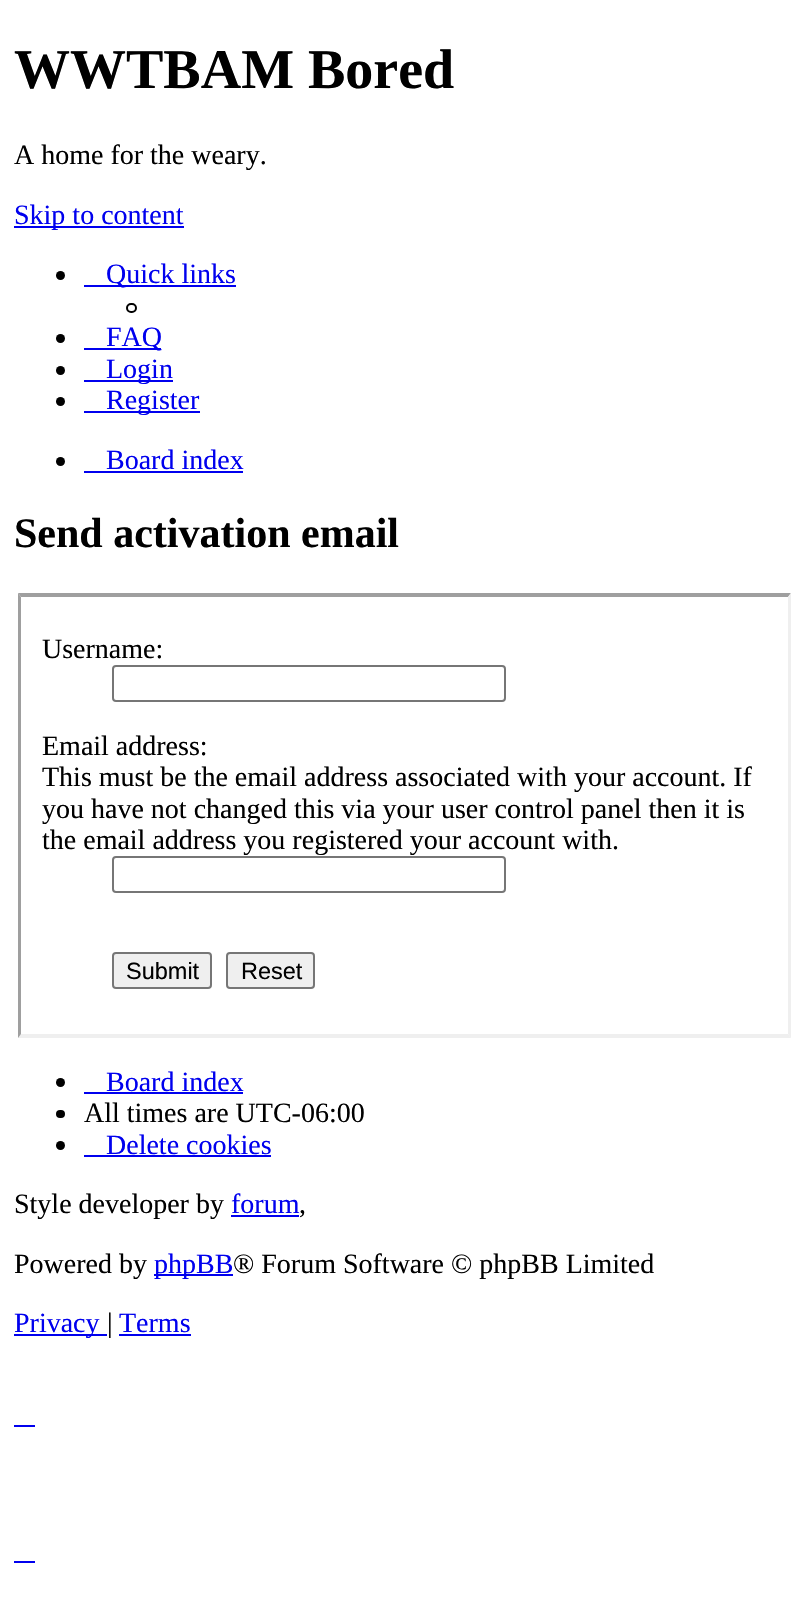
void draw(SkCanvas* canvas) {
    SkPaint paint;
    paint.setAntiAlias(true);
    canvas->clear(0xFFFFFFFF);
    SkFont font1(fontMgr->matchFamilyStyle("Liberation Serif", SkFontStyle::Bold()), 56);
    font1.setSubpixel(true);
    paint.setColor(0xFF000000);
    canvas->drawString("WWTBAM Bored", 14, 88, font1, paint);
    SkFont font2(fontMgr->matchFamilyStyle("Liberation Serif", SkFontStyle::Normal()), 28);
    font2.setSubpixel(true);
    canvas->drawString("A home for the weary.", 14, 164, font2, paint);
    paint.setColor(0xFF0000EE);
    canvas->drawRect(SkRect::MakeXYWH(14, 226, 170, 2), paint);
    canvas->drawString("Skip to content", 14, 224, font2, paint);
    paint.setColor(0xFF000000);
    canvas->drawCircle(60.5f, 275.5f, 4.5f, paint);
    paint.setColor(0xFF0000EE);
    canvas->drawRect(SkRect::MakeXYWH(84, 285, 152, 2), paint);
    canvas->drawString("Quick links", 106, 283, font2, paint);
    paint.setStyle(SkPaint::kStroke_Style);
    paint.setStrokeWidth(2);
    paint.setColor(0xFF000000);
    canvas->drawRoundRect(SkRect::MakeXYWH(127, 304, 9, 8), 4, 4, paint);
    paint.setStyle(SkPaint::kFill_Style);
    canvas->drawCircle(60.5f, 338.5f, 4.5f, paint);
    paint.setColor(0xFF0000EE);
    canvas->drawRect(SkRect::MakeXYWH(84, 348, 77, 2), paint);
    canvas->drawString("FAQ", 106, 346, font2, paint);
    paint.setColor(0xFF000000);
    canvas->drawCircle(60.5f, 370.5f, 4.5f, paint);
    paint.setColor(0xFF0000EE);
    canvas->drawRect(SkRect::MakeXYWH(84, 380, 89, 2), paint);
    canvas->drawString("Login", 106, 378, font2, paint);
    paint.setColor(0xFF000000);
    canvas->drawCircle(60.5f, 401.5f, 4.5f, paint);
    paint.setColor(0xFF0000EE);
    canvas->drawRect(SkRect::MakeXYWH(84, 411, 116, 2), paint);
    canvas->drawString("Register", 106, 409, font2, paint);
    paint.setColor(0xFF000000);
    canvas->drawCircle(60.5f, 461.5f, 4.5f, paint);
    paint.setColor(0xFF0000EE);
    canvas->drawString("Board index", 106, 469, font2, paint);
    canvas->drawRect(SkRect::MakeXYWH(84, 471, 159, 2), paint);
    SkFont font3(fontMgr->matchFamilyStyle("Liberation Serif", SkFontStyle::Bold()), 42);
    font3.setSubpixel(true);
    paint.setColor(0xFF000000);
    canvas->drawString("Send activation email", 14, 547, font3, paint);
    paint.setColor(0xFF9F9F9F);
    canvas->drawPath(SkPathBuilder().moveTo(18, 593).lineTo(791, 593).lineTo(788, 597).lineTo(21, 597).close().detach(), paint);
    paint.setColor(0xFFEFEFEF);
    canvas->drawPath(SkPathBuilder().moveTo(791, 593).lineTo(791, 1038).lineTo(788, 1034).lineTo(788, 597).close().detach(), paint);
    canvas->drawPath(SkPathBuilder().moveTo(791, 1038).lineTo(18, 1038).lineTo(21, 1034).lineTo(788, 1034).close().detach(), paint);
    paint.setColor(0xFF9F9F9F);
    canvas->drawPath(SkPathBuilder().moveTo(18, 1038).lineTo(18, 593).lineTo(21, 597).lineTo(21, 1034).close().detach(), paint);
    paint.setColor(0xFF000000);
    canvas->drawString("Username:", 42, 658, font2, paint);
    paint.setStyle(SkPaint::kStroke_Style);
    paint.setColor(0xFF767676);
    canvas->drawRoundRect(SkRect::MakeXYWH(113, 666, 392, 35), 3, 3, paint);
    paint.setStyle(SkPaint::kFill_Style);
    paint.setColor(0xFF000000);
    canvas->drawString("Email address:", 42, 755, font2, paint);
    canvas->drawString("This must be the email address associated with your account. If", 42, 786, font2, paint);
    canvas->drawString("you have not changed this via your user control panel then it is", 42, 818, font2, paint);
    canvas->drawString("the email address you registered your account with.", 42, 849, font2, paint);
    paint.setStyle(SkPaint::kStroke_Style);
    paint.setColor(0xFF767676);
    canvas->drawRoundRect(SkRect::MakeXYWH(113, 857, 392, 35), 3, 3, paint);
    paint.setStyle(SkPaint::kFill_Style);
    paint.setColor(0xFFEFEFEF);
    canvas->drawRoundRect(SkRect::MakeXYWH(113, 953, 98, 35), 3, 3, paint);
    paint.setStyle(SkPaint::kStroke_Style);
    paint.setColor(0xFF767676);
    canvas->drawRoundRect(SkRect::MakeXYWH(113, 953, 98, 35), 3, 3, paint);
    SkFont font4(fontMgr->matchFamilyStyle("Liberation Sans", SkFontStyle::Normal()), 23.5f);
    font4.setSubpixel(true);
    paint.setStyle(SkPaint::kFill_Style);
    paint.setColor(0xFF000000);
    canvas->drawString("Submit", 126, 979, font4, paint);
    paint.setColor(0xFFEFEFEF);
    canvas->drawRoundRect(SkRect::MakeXYWH(227, 953, 87, 35), 3, 3, paint);
    paint.setStyle(SkPaint::kStroke_Style);
    paint.setColor(0xFF767676);
    canvas->drawRoundRect(SkRect::MakeXYWH(227, 953, 87, 35), 3, 3, paint);
    paint.setStyle(SkPaint::kFill_Style);
    paint.setColor(0xFF000000);
    canvas->drawString("Reset", 241, 979, font4, paint);
    canvas->drawCircle(60.5f, 1082.5f, 4.5f, paint);
    paint.setColor(0xFF0000EE);
    canvas->drawString("Board index", 106, 1091, font2, paint);
    canvas->drawRect(SkRect::MakeXYWH(84, 1092, 159, 2), paint);
    paint.setColor(0xFF000000);
    canvas->drawRoundRect(SkRect::MakeXYWH(56, 1110, 9, 8), 4, 4, paint);
    canvas->drawString("All times are UTC-06:00", 84, 1122, font2, paint);
    canvas->drawCircle(60.5f, 1145.5f, 4.5f, paint);
    paint.setColor(0xFF0000EE);
    canvas->drawString("Delete cookies", 106, 1154, font2, paint);
    canvas->drawRect(SkRect::MakeXYWH(84, 1155, 187, 2), paint);
    paint.setColor(0xFF000000);
    canvas->drawString("Style developer by", 14, 1213, font2, paint);
    paint.setColor(0xFF0000EE);
    canvas->drawString("forum", 231, 1213, font2, paint);
    canvas->drawRect(SkRect::MakeXYWH(231, 1215, 68, 2), paint);
    paint.setColor(0xFF000000);
    canvas->drawString(",", 299, 1213, font2, paint);
    canvas->drawString("Powered by", 14, 1273, font2, paint);
    paint.setColor(0xFF0000EE);
    canvas->drawRect(SkRect::MakeXYWH(154, 1274, 79, 2), paint);
    canvas->drawString("phpBB", 154, 1273, font2, paint);
    paint.setColor(0xFF000000);
    canvas->drawString("® Forum Software © phpBB Limited", 233, 1273, font2, paint);
    paint.setColor(0xFF0000EE);
    canvas->drawRect(SkRect::MakeXYWH(14, 1334, 93, 2), paint);
    canvas->drawString("Privacy", 14, 1332, font2, paint);
    paint.setColor(0xFF000000);
    canvas->drawString("|", 107, 1332, font2, paint);
    paint.setColor(0xFF0000EE);
    canvas->drawString("Terms", 119, 1332, font2, paint);
    canvas->drawRect(SkRect::MakeXYWH(119, 1334, 72, 2), paint);
    canvas->drawRect(SkRect::MakeXYWH(14, 1425, 21, 2), paint);
    canvas->drawRect(SkRect::MakeXYWH(14, 1561, 21, 2), paint);
}
